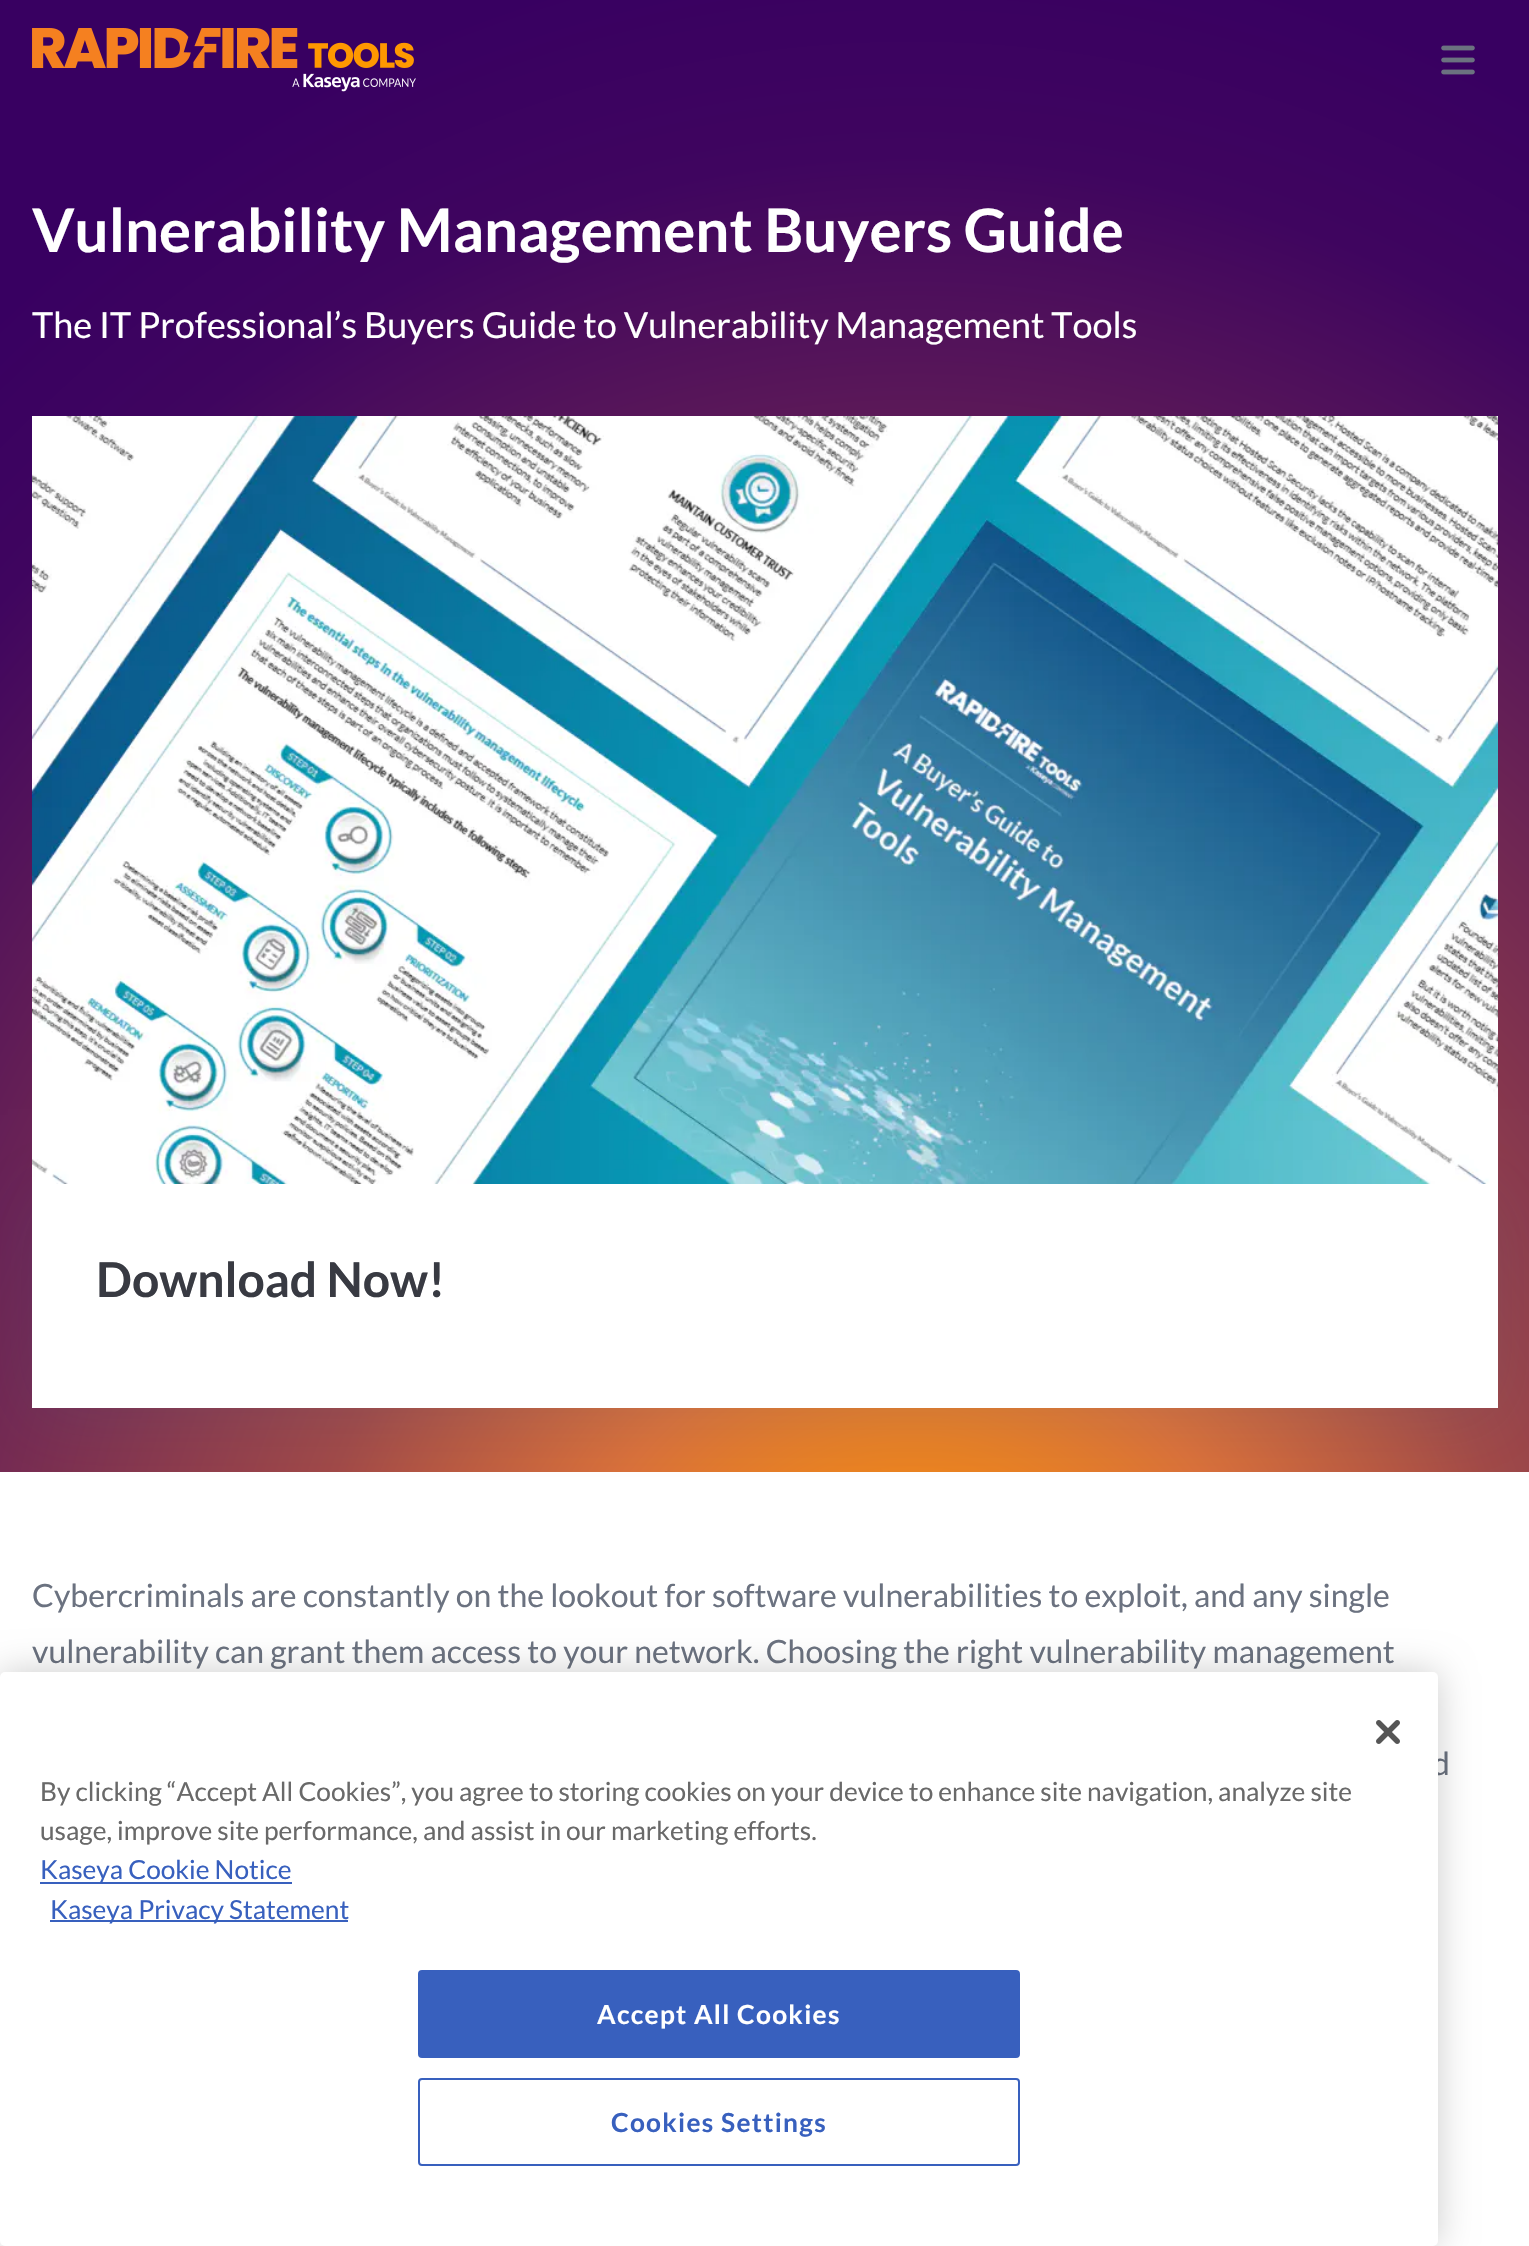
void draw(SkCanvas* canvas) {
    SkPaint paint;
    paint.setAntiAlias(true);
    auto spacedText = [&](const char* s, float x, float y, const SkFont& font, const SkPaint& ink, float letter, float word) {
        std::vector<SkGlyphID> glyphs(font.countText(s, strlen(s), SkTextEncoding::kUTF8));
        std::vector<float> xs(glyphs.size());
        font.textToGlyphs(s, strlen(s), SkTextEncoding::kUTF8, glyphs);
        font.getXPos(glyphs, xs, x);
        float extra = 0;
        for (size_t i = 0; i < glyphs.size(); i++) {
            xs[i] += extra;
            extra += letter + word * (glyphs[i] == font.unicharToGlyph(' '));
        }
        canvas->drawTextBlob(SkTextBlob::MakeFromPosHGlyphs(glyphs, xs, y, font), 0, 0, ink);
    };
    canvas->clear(0xFFFFFFFF);
    {
        const SkColor colors[] = {0xFFFF9800, 0xFFD97039, 0xFFA04947, 0xFF732952, 0xFF53135A, 0xFF3F055F, 0xFF380061};
        const float stops[] = {0.08f, 0.26f, 0.42f, 0.63f, 0.78f, 0.88f, 1};
        SkMatrix m = SkMatrix::Translate(912, 1808).preScale(1519, 1879);
        paint.setShader(SkGradientShader::MakeRadial({0, 0}, 1, colors, stops, 7, SkTileMode::kClamp, 0, &m));
        paint.setAlpha(255);
    }
    canvas->drawRect(SkRect::MakeXYWH(0, 0, 1529, 1472), paint);
    canvas->drawImageRect(SkImages::DeferredFromEncodedData(SkData::MakeFromFileName("img1.png")), SkRect::MakeXYWH(32, 28, 384, 64), SkSamplingOptions());
    canvas->drawImageRect(SkImages::DeferredFromEncodedData(SkData::MakeFromFileName("img2.png")), SkRect::MakeXYWH(1441, 45, 34, 30), SkSamplingOptions());
    SkFont font1(fontMgr->matchFamilyStyle("Lato", SkFontStyle::Bold()), 60);
    font1.setSubpixel(true);
    paint.setShader(nullptr);
    paint.setColor(0xFFFFFFFF);
    canvas->drawString("Vulnerability Management Buyers Guide", 32, 252, font1, paint);
    SkFont font2(fontMgr->matchFamilyStyle("Lato", SkFontStyle::Normal()), 36);
    font2.setSubpixel(true);
    canvas->drawString("The IT Professional’s Buyers Guide to Vulnerability Management Tools", 32, 338, font2, paint);
    paint.setColor(0x1A0C68B4);
    paint.setMaskFilter(SkMaskFilter::MakeBlur(kNormal_SkBlurStyle, 34));
    canvas->drawRect(SkRect::MakeXYWH(32, 1192, 1466, 224), paint);
    paint.setMaskFilter(nullptr);
    canvas->drawImageRect(SkImages::DeferredFromEncodedData(SkData::MakeFromFileName("img3.png")), SkRect::MakeXYWH(32, 416, 1466, 768), SkSamplingOptions());
    paint.setColor(0xFFFFFFFF);
    canvas->drawRect(SkRect::MakeXYWH(32, 1184, 1466, 224), paint);
    SkFont font3(fontMgr->matchFamilyStyle("Lato", SkFontStyle::Bold()), 48);
    font3.setSubpixel(true);
    paint.setColor(0xFF383A42);
    canvas->drawString("Download Now!", 96, 1297, font3, paint);
    SkFont font4(fontMgr->matchFamilyStyle("Lato", SkFontStyle::Normal()), 32);
    font4.setSubpixel(true);
    paint.setColor(0xFF6B7280);
    canvas->drawString("Cybercriminals are constantly on the lookout for software vulnerabilities to exploit, and any single", 32, 1607, font4, paint);
    canvas->drawString("vulnerability can grant them access to your network. Choosing the right vulnerability management", 32, 1663, font4, paint);
    canvas->drawString("d", 1432, 1775, font4, paint);
    paint.setColor(0x33000000);
    paint.setMaskFilter(SkMaskFilter::MakeBlur(kNormal_SkBlurStyle, 18));
    canvas->drawRoundRect(SkRect::MakeXYWH(0, 1672, 1438, 574), 5, 5, paint);
    paint.setMaskFilter(nullptr);
    paint.setColor(0xFFFFFFFF);
    canvas->drawRoundRect(SkRect::MakeXYWH(0, 1672, 1438, 574), 5, 5, paint);
    canvas->drawImageRect(SkImages::DeferredFromEncodedData(SkData::MakeFromFileName("img4.png")), SkRect::MakeXYWH(1376, 1720, 24, 24), SkSamplingOptions());
    SkFont font5(fontMgr->matchFamilyStyle("Lato", SkFontStyle::Normal()), 26.25f);
    font5.setSubpixel(true);
    paint.setColor(0xFF696969);
    canvas->drawString("By clicking “Accept All Cookies”, you agree to storing cookies on your device to enhance site navigation, analyze site", 40, 1801, font5, paint);
    canvas->drawString("usage, improve site performance, and assist in our marketing efforts.", 40, 1840, font5, paint);
    paint.setColor(0xFF3860BE);
    canvas->drawRect(SkRect::MakeXYWH(40, 1882, 252, 2), paint);
    canvas->drawString("Kaseya Cookie Notice", 40, 1879, font5, paint);
    canvas->drawRect(SkRect::MakeXYWH(50, 1920, 298, 2), paint);
    canvas->drawString("Kaseya Privacy Statement", 50, 1919, font5, paint);
    canvas->drawRoundRect(SkRect::MakeXYWH(419, 1971, 600, 86), 3, 3, paint);
    paint.setStyle(SkPaint::kStroke_Style);
    paint.setStrokeWidth(2);
    canvas->drawRoundRect(SkRect::MakeXYWH(419, 1971, 600, 86), 3, 3, paint);
    SkFont font6(fontMgr->matchFamilyStyle("Lato", SkFontStyle::Bold()), 26.25f);
    font6.setSubpixel(true);
    paint.setStyle(SkPaint::kFill_Style);
    paint.setColor(0xFFFFFFFF);
    spacedText("Accept All Cookies", 597, 2024, font6, paint, 1.3f, 0);
    paint.setStyle(SkPaint::kStroke_Style);
    paint.setColor(0xFF3860BE);
    canvas->drawRoundRect(SkRect::MakeXYWH(419, 2079, 600, 86), 3, 3, paint);
    paint.setStyle(SkPaint::kFill_Style);
    spacedText("Cookies Settings", 611, 2132, font6, paint, 1.3f, 0);
}
